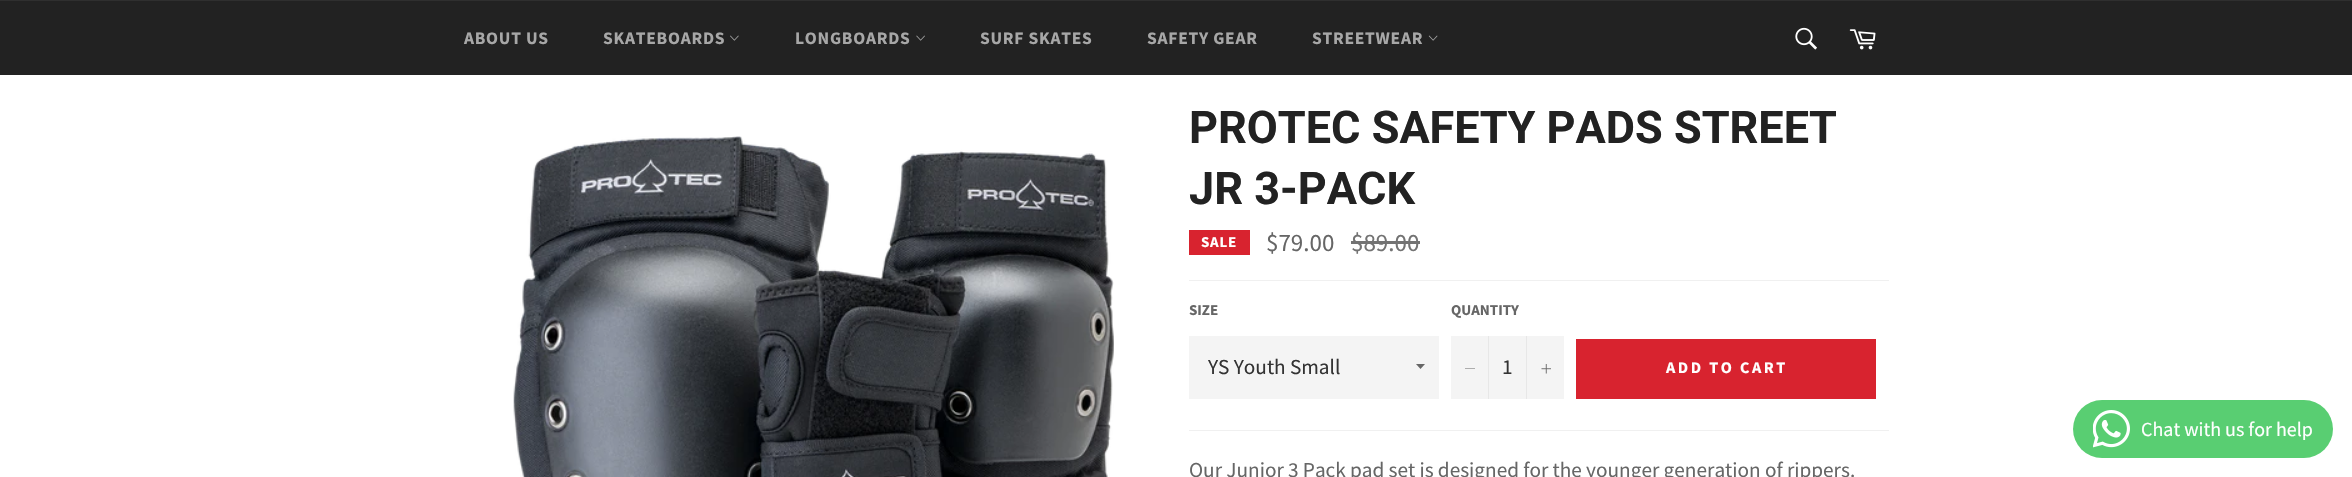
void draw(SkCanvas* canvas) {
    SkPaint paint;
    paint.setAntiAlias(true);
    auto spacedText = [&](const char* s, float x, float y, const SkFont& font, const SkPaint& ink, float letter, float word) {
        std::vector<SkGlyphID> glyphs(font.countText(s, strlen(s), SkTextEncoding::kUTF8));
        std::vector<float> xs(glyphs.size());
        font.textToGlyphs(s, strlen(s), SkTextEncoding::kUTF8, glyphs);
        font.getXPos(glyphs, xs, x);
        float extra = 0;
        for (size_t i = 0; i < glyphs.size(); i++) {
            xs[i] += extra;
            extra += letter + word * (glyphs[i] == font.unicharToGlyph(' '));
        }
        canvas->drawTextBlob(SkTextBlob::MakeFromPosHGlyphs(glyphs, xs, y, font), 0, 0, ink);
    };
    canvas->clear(0xFFFFFFFF);
    paint.setColor(0xFF222222);
    canvas->drawRect(SkRect::MakeXYWH(0, 1, 2352, 74), paint);
    paint.setColor(0xFF2F2F2F);
    canvas->drawRect(SkRect::MakeXYWH(0, 0, 2352, 1), paint);
    SkFont font1(fontMgr->matchFamilyStyle("Source Sans Pro", SkFontStyle::Bold()), 17.5f);
    font1.setSubpixel(true);
    paint.setColor(0xFFA7A7A7);
    spacedText("ABOUT US", 464, 44, font1, paint, 0.75f, 0);
    spacedText("SKATEBOARDS", 603, 44, font1, paint, 0.75f, 0);
    canvas->drawImageRect(SkImages::DeferredFromEncodedData(SkData::MakeFromFileName("img1.png")), SkRect::MakeXYWH(730, 35, 9, 6), SkSamplingOptions());
    spacedText("LONGBOARDS", 795, 44, font1, paint, 0.75f, 0);
    canvas->drawImageRect(SkImages::DeferredFromEncodedData(SkData::MakeFromFileName("img2.png")), SkRect::MakeXYWH(916, 35, 9, 6), SkSamplingOptions());
    spacedText("SURF SKATES", 980, 44, font1, paint, 0.75f, 0);
    spacedText("SAFETY GEAR", 1147, 44, font1, paint, 0.75f, 0);
    spacedText("STREETWEAR", 1312, 44, font1, paint, 0.75f, 0);
    canvas->drawImageRect(SkImages::DeferredFromEncodedData(SkData::MakeFromFileName("img3.png")), SkRect::MakeXYWH(1428, 35, 10, 6), SkSamplingOptions());
    canvas->drawImageRect(SkImages::DeferredFromEncodedData(SkData::MakeFromFileName("img4.png")), SkRect::MakeXYWH(1795, 27, 22, 23), SkSamplingOptions());
    canvas->drawImageRect(SkImages::DeferredFromEncodedData(SkData::MakeFromFileName("img5.png")), SkRect::MakeXYWH(1849, 29, 27, 21), SkSamplingOptions());
    canvas->drawImageRect(SkImages::DeferredFromEncodedData(SkData::MakeFromFileName("img6.png")), SkRect::MakeXYWH(513, 136, 601, 341), SkSamplingOptions());
    SkFont font2(fontMgr->matchFamilyStyle("Roboto", SkFontStyle::Bold()), 45);
    font2.setSubpixel(true);
    paint.setColor(0xFF222222);
    canvas->drawString("PROTEC SAFETY PADS STREET", 1189, 143, font2, paint);
    canvas->drawString("JR 3-PACK", 1189, 204, font2, paint);
    paint.setColor(0xFFD8232F);
    canvas->drawRect(SkRect::MakeXYWH(1189, 230, 61, 25), paint);
    SkFont font3(fontMgr->matchFamilyStyle("Source Sans Pro", SkFontStyle::Bold()), 15);
    font3.setSubpixel(true);
    paint.setColor(0xFFFFFFFF);
    spacedText("SALE", 1201, 247, font3, paint, 0.75f, 0);
    SkFont font4(fontMgr->matchFamilyStyle("Source Sans Pro", SkFontStyle::Normal()), 25);
    font4.setSubpixel(true);
    paint.setColor(0xFF666666);
    canvas->drawString("$79.00", 1266, 251, font4, paint);
    paint.setColor(0xFF737373);
    canvas->drawString("$89.00", 1351, 251, font4, paint);
    canvas->drawRect(SkRect::MakeXYWH(1351, 241, 69, 3), paint);
    paint.setColor(0xFFF0F0F0);
    canvas->drawRect(SkRect::MakeXYWH(1189, 280, 700, 1), paint);
    paint.setColor(0xFF666666);
    canvas->drawString("SIZE", 1189, 315, font3, paint);
    paint.setColor(0xFFF4F4F4);
    canvas->drawRect(SkRect::MakeXYWH(1189, 336, 250, 63), paint);
    paint.setColor(0xFF666666);
    canvas->drawPath(SkPathBuilder().moveTo(1416, 364).lineTo(1420.5f, 369).lineTo(1425, 364).close().detach(), paint);
    SkFont font5(fontMgr->matchFamilyStyle("Source Sans Pro", SkFontStyle::Normal()), 21.25f);
    font5.setSubpixel(true);
    paint.setColor(0xFF333333);
    canvas->drawString("YS Youth Small", 1208, 374, font5, paint);
    paint.setColor(0xFF666666);
    canvas->drawString("QUANTITY", 1451, 315, font3, paint);
    paint.setColor(0xFFF4F4F4);
    canvas->drawRect(SkRect::MakeXYWH(1451, 336, 113, 63), paint);
    paint.setColor(0xFFE7E7E7);
    canvas->drawRect(SkRect::MakeXYWH(1488, 336, 1, 63), paint);
    paint.setColor(0xFF666666);
    canvas->drawPath(SkPathBuilder(SkPathFillType::kEvenOdd).moveTo(1475, 368.5f).lineTo(1475, 369).lineTo(1465, 369).lineTo(1465, 368.5f).close().detach(), paint);
    paint.setColor(0xFF333333);
    canvas->drawString("1", 1502, 374, font5, paint);
    paint.setColor(0xFFE7E7E7);
    canvas->drawRect(SkRect::MakeXYWH(1526, 336, 1, 63), paint);
    canvas->drawImageRect(SkImages::DeferredFromEncodedData(SkData::MakeFromFileName("img7.png")), SkRect::MakeXYWH(1541, 364, 10, 10), SkSamplingOptions());
    paint.setColor(0xFFD8232F);
    canvas->drawRect(SkRect::MakeXYWH(1576, 339, 300, 60), paint);
    SkFont font6(fontMgr->matchFamilyStyle("Source Sans Pro", SkFontStyle::Bold()), 16.25f);
    font6.setSubpixel(true);
    paint.setColor(0xFFFFFFFF);
    spacedText("ADD TO CART", 1666, 373, font6, paint, 2.5f, 0);
    paint.setColor(0xFFF0F0F0);
    canvas->drawRect(SkRect::MakeXYWH(1189, 430, 700, 1), paint);
    paint.setColor(0xFF666666);
    canvas->drawString("Our Junior 3 Pack pad set is designed for the younger generation of rippers.", 1189, 477, font5, paint);
    paint.setColor(0xFF59CE72);
    canvas->drawRoundRect(SkRect::MakeXYWH(2073, 400, 260, 58), 29, 29, paint);
    canvas->drawImageRect(SkImages::DeferredFromEncodedData(SkData::MakeFromFileName("img8.png")), SkRect::MakeXYWH(2093, 410, 37, 38), SkSamplingOptions());
    SkFont font7(fontMgr->matchFamilyStyle("Source Sans Pro", SkFontStyle::Normal()), 20);
    font7.setSubpixel(true);
    paint.setColor(0xFFFFFFFF);
    canvas->drawString("Chat with us for help", 2141, 436, font7, paint);
}
